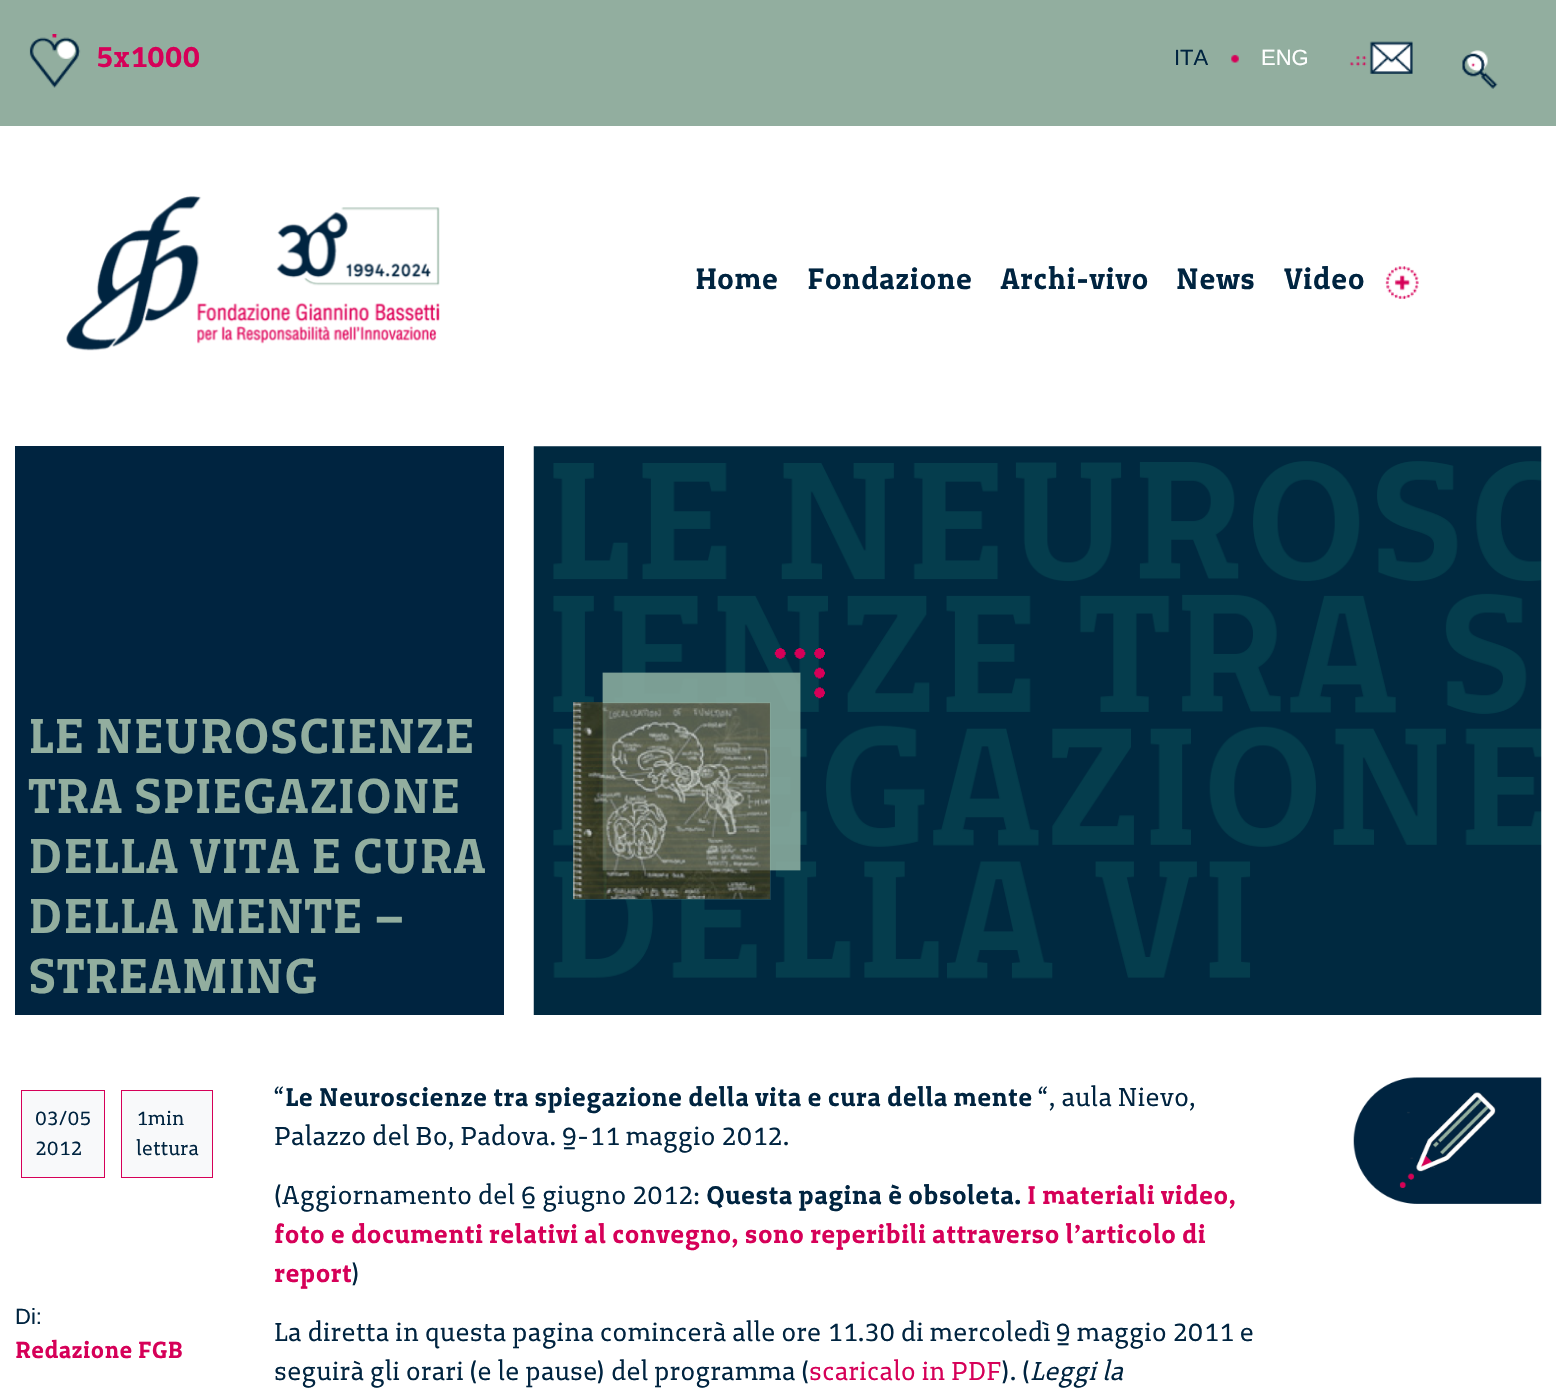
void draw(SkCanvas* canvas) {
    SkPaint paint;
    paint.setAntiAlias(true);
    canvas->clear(0xFFFFFFFF);
    paint.setColor(0xFF92AE9F);
    canvas->drawRect(SkRect::MakeXYWH(0, 0, 1556, 126), paint);
    canvas->drawImageRect(SkImages::DeferredFromEncodedData(SkData::MakeFromFileName("img1.png")), SkRect::MakeXYWH(29, 34, 52, 54), SkSamplingOptions());
    SkFont font1(fontMgr->matchFamilyStyle("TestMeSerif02", SkFontStyle::Bold()), 30);
    font1.setSubpixel(true);
    paint.setColor(0xFFD60058);
    canvas->drawString("5x1000", 96, 67, font1, paint);
    SkFont font2(fontMgr->matchFamilyStyle("Liberation Sans", SkFontStyle::Normal()), 22);
    font2.setSubpixel(true);
    paint.setColor(0xFF002440);
    canvas->drawString("ITA", 1174, 65, font2, paint);
    canvas->drawImageRect(SkImages::DeferredFromEncodedData(SkData::MakeFromFileName("img2.png")), SkRect::MakeXYWH(1231, 54, 8, 9), SkSamplingOptions());
    paint.setColor(0xFFFFFFFF);
    canvas->drawString("ENG", 1261, 65, font2, paint);
    canvas->drawImageRect(SkImages::DeferredFromEncodedData(SkData::MakeFromFileName("img3.png")), SkRect::MakeXYWH(1349, 41, 64, 33), SkSamplingOptions());
    canvas->drawImageRect(SkImages::DeferredFromEncodedData(SkData::MakeFromFileName("img4.png")), SkRect::MakeXYWH(1462, 50, 36, 39), SkSamplingOptions());
    canvas->drawImageRect(SkImages::DeferredFromEncodedData(SkData::MakeFromFileName("img5.png")), SkRect::MakeXYWH(66, 196, 374, 155), SkSamplingOptions());
    paint.setColor(0xFF002440);
    canvas->drawString("Home", 695, 289, font1, paint);
    canvas->drawString("Fondazione", 807, 289, font1, paint);
    canvas->drawString("Archi-vivo", 1000, 289, font1, paint);
    canvas->drawString("News", 1176, 289, font1, paint);
    canvas->drawString("Video", 1284, 289, font1, paint);
    canvas->drawImageRect(SkImages::DeferredFromEncodedData(SkData::MakeFromFileName("img6.png")), SkRect::MakeXYWH(1385, 266, 34, 33), SkSamplingOptions());
    canvas->drawRect(SkRect::MakeXYWH(15, 446, 489, 569), paint);
    SkFont font3(fontMgr->matchFamilyStyle("TestMeSerif02", SkFontStyle::Bold()), 50);
    font3.setSubpixel(true);
    paint.setColor(0xFF92AE9F);
    canvas->drawString("LE NEUROSCIENZE", 28, 753, font3, paint);
    canvas->drawString("TRA SPIEGAZIONE", 28, 813, font3, paint);
    canvas->drawString("DELLA VITA E CURA", 28, 873, font3, paint);
    canvas->drawString("DELLA MENTE –", 28, 933, font3, paint);
    canvas->drawString("STREAMING", 28, 993, font3, paint);
    canvas->drawImageRect(SkImages::DeferredFromEncodedData(SkData::MakeFromFileName("img7.png")), SkRect::MakeXYWH(533, 446, 1009, 569), SkSamplingOptions());
    paint.setColor(0xFFF8F9FA);
    canvas->drawRect(SkRect::MakeXYWH(21.5f, 1090.5f, 83, 87), paint);
    paint.setStyle(SkPaint::kStroke_Style);
    paint.setStrokeWidth(1);
    paint.setColor(0xFFD60058);
    canvas->drawRect(SkRect::MakeXYWH(21.5f, 1090.5f, 83, 87), paint);
    SkFont font4(fontMgr->matchFamilyStyle("TestMeSerif02", SkFontStyle::Normal()), 20);
    font4.setSubpixel(true);
    paint.setStyle(SkPaint::kFill_Style);
    paint.setColor(0xFF002440);
    canvas->drawString("03/05", 35, 1125, font4, paint);
    canvas->drawString("2012", 35, 1155, font4, paint);
    paint.setColor(0xFFF8F9FA);
    canvas->drawRect(SkRect::MakeXYWH(121.5f, 1090.5f, 91, 87), paint);
    paint.setStyle(SkPaint::kStroke_Style);
    paint.setColor(0xFFD60058);
    canvas->drawRect(SkRect::MakeXYWH(121.5f, 1090.5f, 91, 87), paint);
    paint.setStyle(SkPaint::kFill_Style);
    paint.setColor(0xFF002440);
    canvas->drawString("1min", 136, 1125, font4, paint);
    canvas->drawString("lettura", 136, 1155, font4, paint);
    canvas->drawString("Di:", 15, 1324, font2, paint);
    SkFont font5(fontMgr->matchFamilyStyle("TestMeSerif02", SkFontStyle::Bold()), 23.75f);
    font5.setSubpixel(true);
    paint.setColor(0xFFD60058);
    canvas->drawString("Redazione FGB", 15, 1358, font5, paint);
    SkFont font6(fontMgr->matchFamilyStyle("TestMeSerif02", SkFontStyle::Normal()), 26);
    font6.setSubpixel(true);
    paint.setColor(0xFF002440);
    canvas->drawString("“", 274, 1106, font6, paint);
    SkFont font7(fontMgr->matchFamilyStyle("TestMeSerif02", SkFontStyle::Bold()), 26);
    font7.setSubpixel(true);
    canvas->drawString("Le Neuroscienze tra spiegazione della vita e cura della mente", 285, 1106, font7, paint);
    canvas->drawString("“, aula Nievo,", 1038, 1106, font6, paint);
    canvas->drawString("Palazzo del Bo, Padova. 9-11 maggio 2012.", 274, 1145, font6, paint);
    canvas->drawString("(Aggiornamento del 6 giugno 2012:", 274, 1204, font6, paint);
    canvas->drawString("Questa pagina è obsoleta.", 706, 1204, font7, paint);
    paint.setColor(0xFFD60058);
    canvas->drawString("I materiali video,", 1027, 1204, font7, paint);
    canvas->drawString("foto e documenti relativi al convegno, sono reperibili attraverso l’articolo di", 274, 1243, font7, paint);
    canvas->drawString("report", 274, 1282, font7, paint);
    paint.setColor(0xFF002440);
    canvas->drawString(")", 352, 1282, font6, paint);
    canvas->drawString("La diretta in questa pagina comincerà alle ore 11.30 di mercoledì 9 maggio 2011 e", 274, 1341, font6, paint);
    canvas->drawString("seguirà gli orari (e le pause) del programma (", 274, 1380, font6, paint);
    paint.setColor(0xFFD60058);
    canvas->drawString("scaricalo in PDF", 809, 1380, font6, paint);
    paint.setColor(0xFF002440);
    canvas->drawString("). (", 1002, 1380, font6, paint);
    SkFont font8(fontMgr->matchFamilyStyle("TestMeSerif02", SkFontStyle::Italic()), 26);
    font8.setSubpixel(true);
    canvas->drawString("Leggi la", 1030, 1380, font8, paint);
    canvas->drawImageRect(SkImages::DeferredFromEncodedData(SkData::MakeFromFileName("img8.png")), SkRect::MakeXYWH(1353, 1077, 189, 127), SkSamplingOptions());
}
